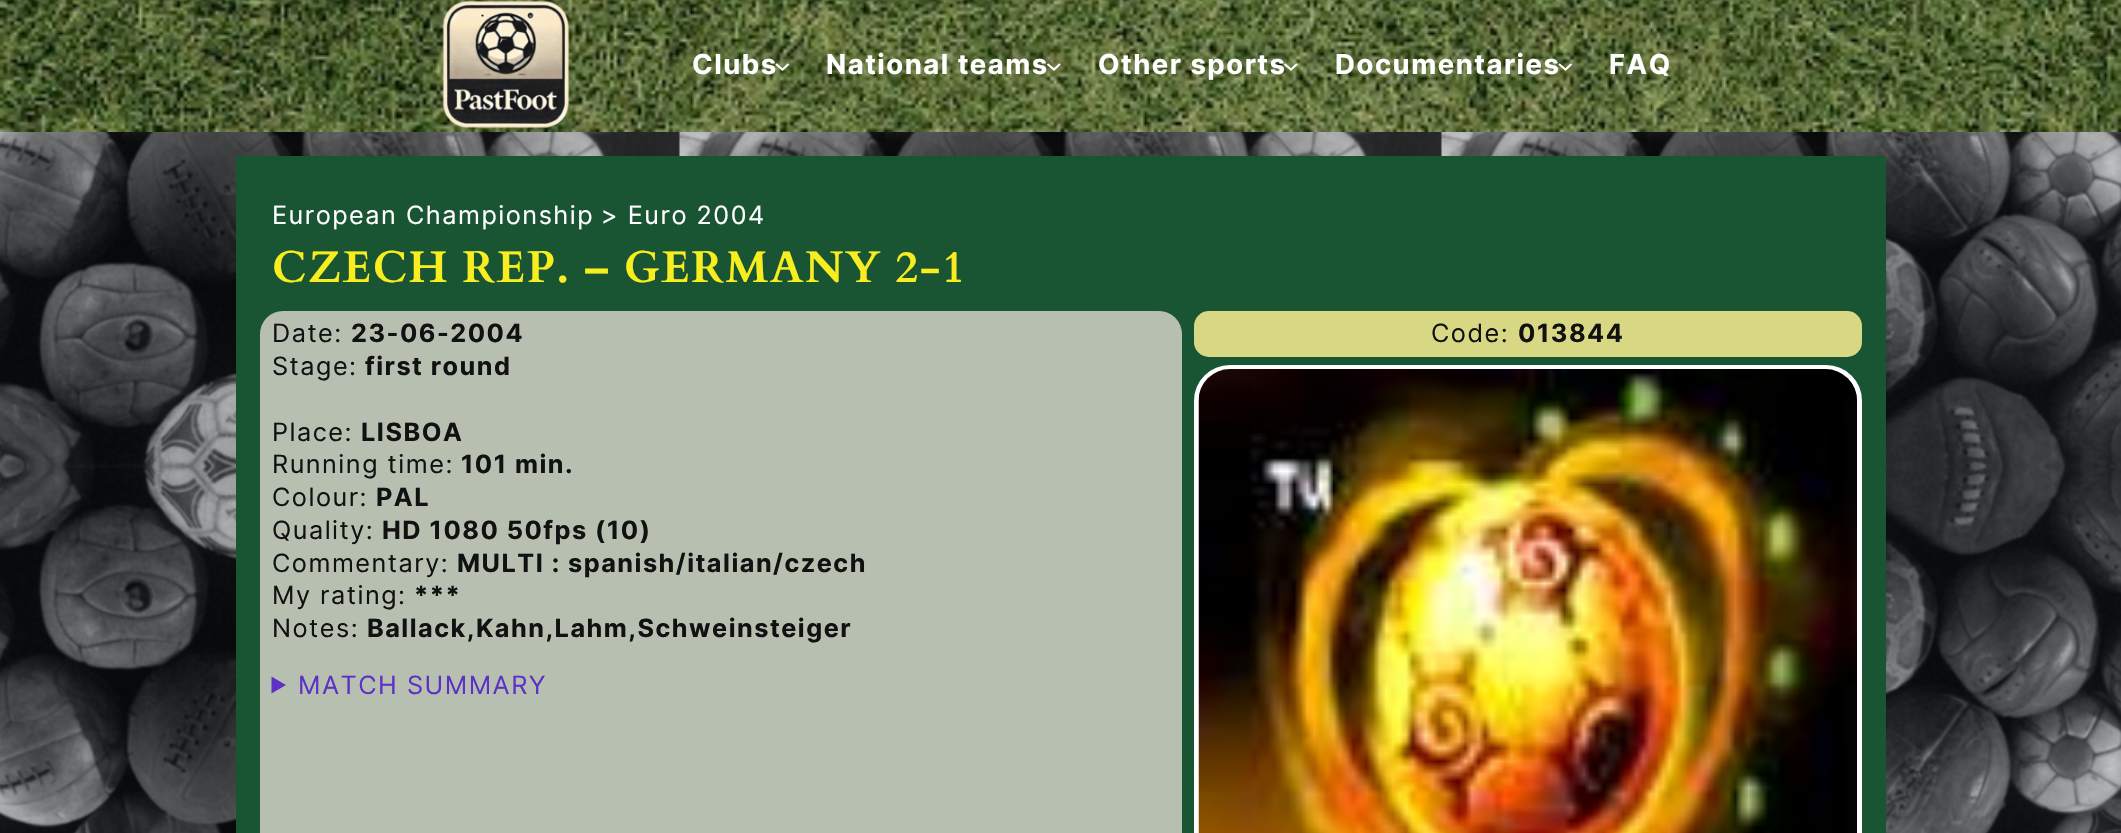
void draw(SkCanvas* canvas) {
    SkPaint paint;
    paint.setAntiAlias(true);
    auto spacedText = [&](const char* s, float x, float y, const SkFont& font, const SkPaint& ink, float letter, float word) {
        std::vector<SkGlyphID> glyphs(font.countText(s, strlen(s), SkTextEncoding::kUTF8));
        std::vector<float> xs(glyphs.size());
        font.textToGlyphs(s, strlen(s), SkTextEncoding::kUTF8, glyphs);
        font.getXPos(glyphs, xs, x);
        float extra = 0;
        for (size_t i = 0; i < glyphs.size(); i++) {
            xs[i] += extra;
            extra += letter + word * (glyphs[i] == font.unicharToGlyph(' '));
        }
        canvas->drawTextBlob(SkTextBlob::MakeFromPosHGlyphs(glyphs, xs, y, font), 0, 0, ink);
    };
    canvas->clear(0xFFFFFFFF);
    canvas->drawImageRect(SkImages::DeferredFromEncodedData(SkData::MakeFromFileName("img1.png")), SkRect::MakeXYWH(0, 132, 2121, 701), SkSamplingOptions());
    canvas->drawImageRect(SkImages::DeferredFromEncodedData(SkData::MakeFromFileName("img2.png")), SkRect::MakeXYWH(0, 0, 2121, 132), SkSamplingOptions());
    canvas->drawImageRect(SkImages::DeferredFromEncodedData(SkData::MakeFromFileName("img3.png")), SkRect::MakeXYWH(442, 0, 128, 129), SkSamplingOptions());
    paint.setStyle(SkPaint::kStroke_Style);
    paint.setStrokeWidth(2.1f);
    paint.setColor(0xFFFFFFFF);
    canvas->drawPath(SkPathBuilder().moveTo(776, 64).lineTo(782.5f, 69.5f).lineTo(788.5f, 64).detach(), paint);
    SkFont font1(fontMgr->matchFamilyStyle("Inter", SkFontStyle::Bold()), 27.5f);
    font1.setSubpixel(true);
    paint.setStyle(SkPaint::kFill_Style);
    spacedText("Clubs", 692, 74, font1, paint, 1.5f, 0);
    paint.setStyle(SkPaint::kStroke_Style);
    canvas->drawPath(SkPathBuilder().moveTo(1047.5f, 64).lineTo(1054, 69.5f).lineTo(1060, 64).detach(), paint);
    paint.setStyle(SkPaint::kFill_Style);
    spacedText("National teams", 826, 74, font1, paint, 1.5f, 0);
    paint.setStyle(SkPaint::kStroke_Style);
    canvas->drawPath(SkPathBuilder().moveTo(1284.5f, 64).lineTo(1291, 69.5f).lineTo(1297, 64).detach(), paint);
    paint.setStyle(SkPaint::kFill_Style);
    spacedText("Other sports", 1098, 74, font1, paint, 1.5f, 0);
    paint.setStyle(SkPaint::kStroke_Style);
    canvas->drawPath(SkPathBuilder().moveTo(1559, 64).lineTo(1565.5f, 69.5f).lineTo(1571.5f, 64).detach(), paint);
    paint.setStyle(SkPaint::kFill_Style);
    spacedText("Documentaries", 1335, 74, font1, paint, 1.5f, 0);
    spacedText("FAQ", 1609, 74, font1, paint, 1.5f, 0);
    paint.setColor(0xFF195433);
    canvas->drawRect(SkRect::MakeXYWH(236, 156, 1650, 677), paint);
    SkFont font2(fontMgr->matchFamilyStyle("Inter", SkFontStyle::Normal()), 25.25f);
    font2.setSubpixel(true);
    paint.setColor(0xFFFFFFFF);
    spacedText("European Championship", 272, 224, font2, paint, 1.5f, 0);
    spacedText("> Euro 2004", 601, 224, font2, paint, 1.5f, 0);
    SkFont font3(fontMgr->matchFamilyStyle("Cardo", SkFontStyle::Bold()), 44.4f);
    font3.setSubpixel(true);
    paint.setColor(0xFFF7ED1F);
    spacedText("CZECH REP. – GERMANY 2-1", 272, 282, font3, paint, 1.5f, 0);
    paint.setColor(0xFFB7BFB1);
    canvas->drawRoundRect(SkRect::MakeXYWH(260, 311, 922, 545), 23, 23, paint);
    paint.setColor(0xFF111111);
    spacedText("Date:", 272, 342, font2, paint, 1.5f, 0);
    SkFont font4(fontMgr->matchFamilyStyle("Inter", SkFontStyle::Bold()), 25.25f);
    font4.setSubpixel(true);
    spacedText("23-06-2004", 351, 342, font4, paint, 1.5f, 0);
    spacedText("Stage:", 272, 375, font2, paint, 1.5f, 0);
    spacedText("first round", 365, 375, font4, paint, 1.5f, 0);
    spacedText("Place:", 272, 441, font2, paint, 1.5f, 0);
    spacedText("LISBOA", 361, 441, font4, paint, 1.5f, 0);
    spacedText("Running time:", 272, 473, font2, paint, 1.5f, 0);
    spacedText("101 min.", 461, 473, font4, paint, 1.5f, 0);
    spacedText("Colour:", 272, 506, font2, paint, 1.5f, 0);
    spacedText("PAL", 376, 506, font4, paint, 1.5f, 0);
    spacedText("Quality:", 272, 539, font2, paint, 1.5f, 0);
    spacedText("HD 1080 50fps (10)", 382, 539, font4, paint, 1.5f, 0);
    spacedText("Commentary:", 272, 572, font2, paint, 1.5f, 0);
    spacedText("MULTI : spanish/italian/czech", 457, 572, font4, paint, 1.5f, 0);
    spacedText("My rating:", 272, 604, font2, paint, 1.5f, 0);
    spacedText("***", 414, 604, font4, paint, 1.5f, 0);
    spacedText("Notes:", 272, 637, font2, paint, 1.5f, 0);
    spacedText("Ballack,Kahn,Lahm,Schweinsteiger", 367, 637, font4, paint, 1.5f, 0);
    paint.setColor(0xFF5E31C5);
    canvas->drawPath(SkPathBuilder().moveTo(271.5f, 676.5f).lineTo(286, 685).lineTo(271.5f, 693.5f).close().detach(), paint);
    spacedText("MATCH SUMMARY", 298, 694, font2, paint, 1.5f, 0);
    paint.setColor(0xFFD8D884);
    canvas->drawRoundRect(SkRect::MakeXYWH(1194, 311, 668, 46), 15, 15, paint);
    paint.setColor(0xFF111111);
    spacedText("Code:", 1431, 342, font2, paint, 1.5f, 0);
    spacedText("013844", 1518, 342, font4, paint, 1.5f, 0);
    paint.setStyle(SkPaint::kStroke_Style);
    paint.setStrokeWidth(5);
    paint.setColor(0xFFFFFFFF);
    canvas->drawRoundRect(SkRect::MakeXYWH(1196.5f, 367.5f, 663, 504), 33.5f, 33.5f, paint);
    canvas->drawImageRect(SkImages::DeferredFromEncodedData(SkData::MakeFromFileName("img4.png")), SkRect::MakeXYWH(1198, 369, 659, 464), SkSamplingOptions());
}
